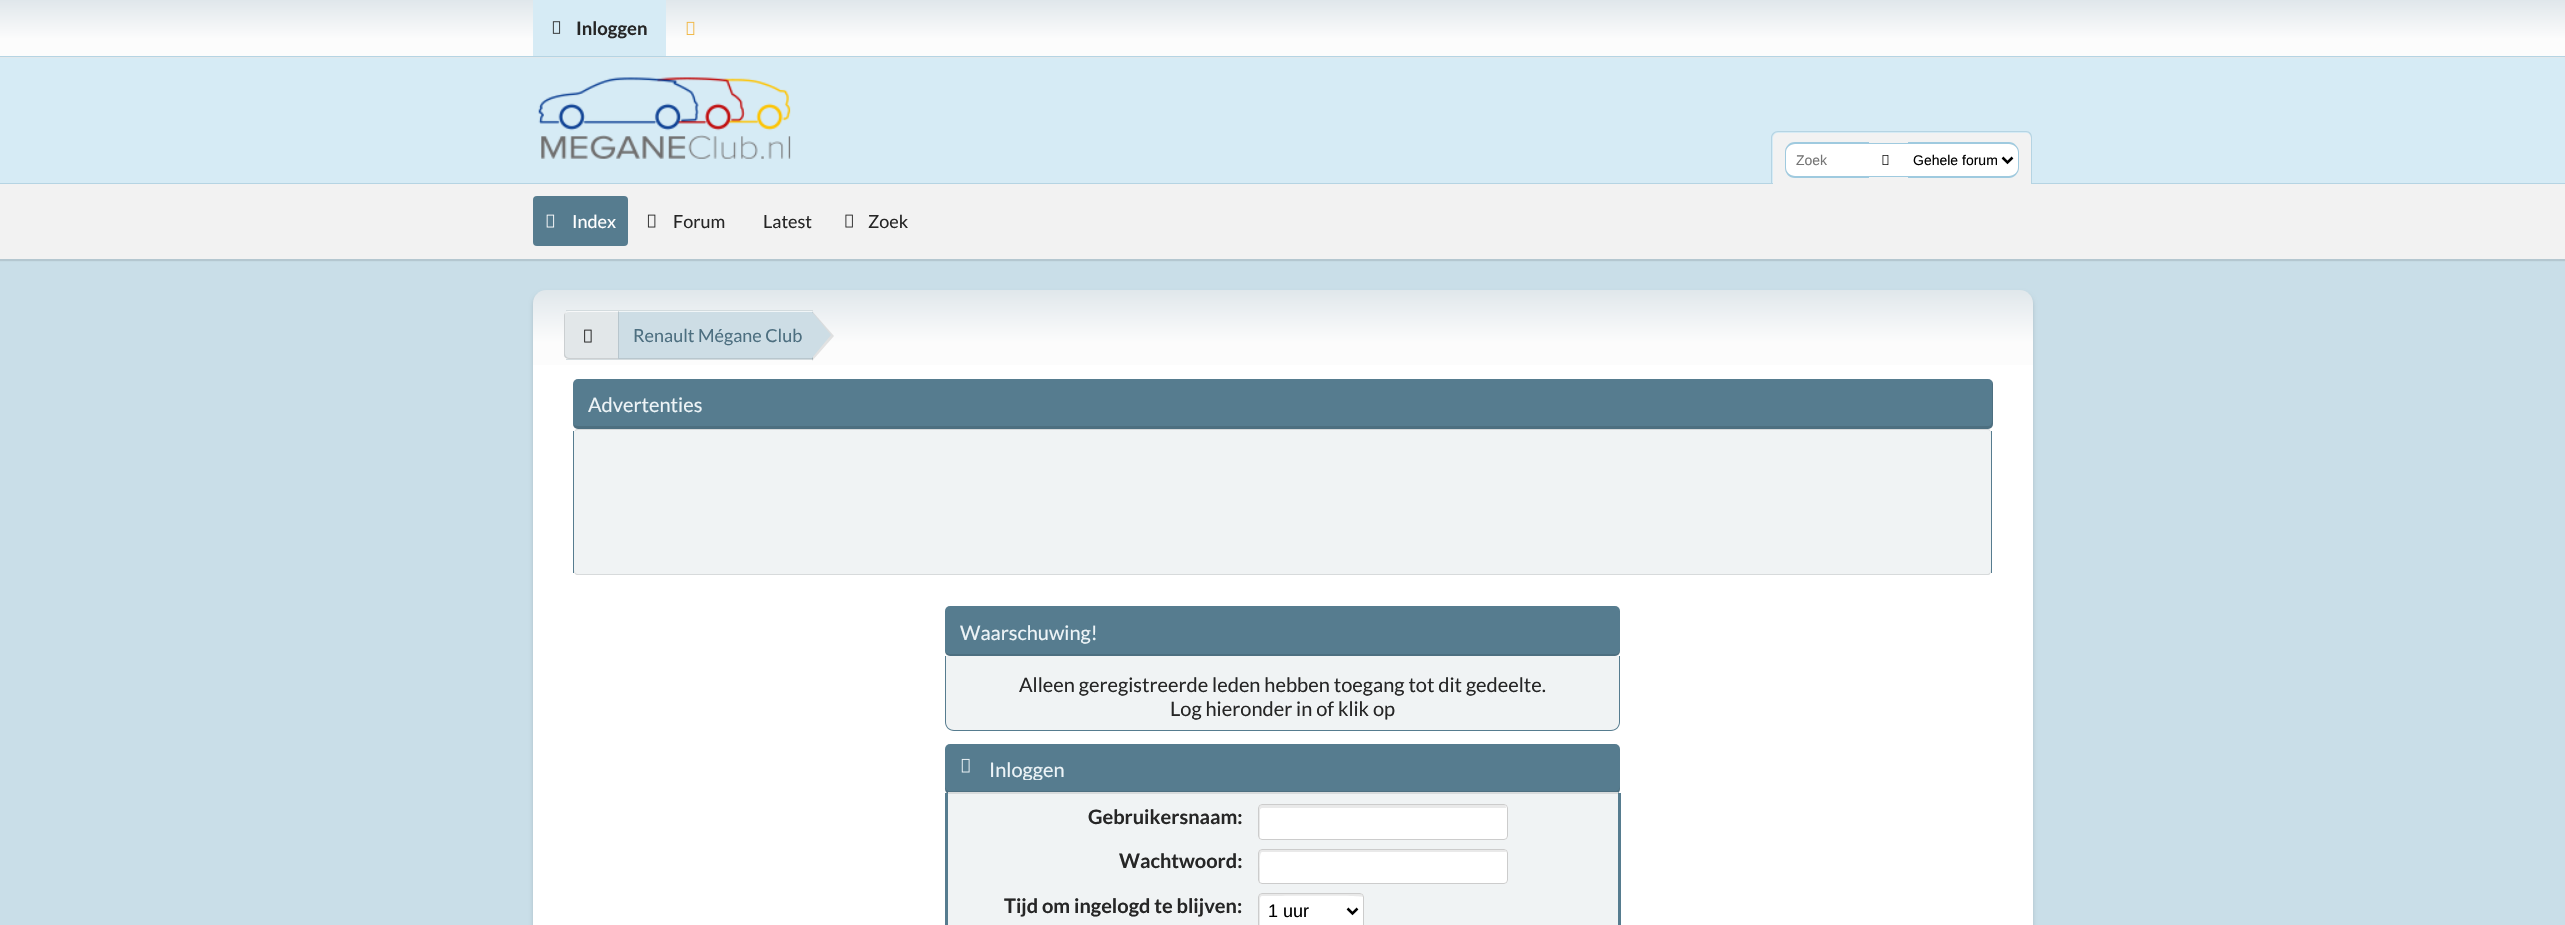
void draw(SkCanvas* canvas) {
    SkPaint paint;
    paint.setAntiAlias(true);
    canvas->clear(0xFFC9DEE8);
    {
        const SkColor colors[] = {0xFFE0E7EB, 0xFFFCFCFC};
        const float stops[] = {0, 0.7f};
        const SkPoint ends[] = {{1283, 0}, {1283, 56}};
        paint.setShader(SkGradientShader::MakeLinear(ends, colors, stops, 2, SkTileMode::kClamp));
        paint.setAlpha(255);
    }
    canvas->drawRect(SkRect::MakeXYWH(0, 0, 2565, 56), paint);
    {
        const SkColor colors[] = {0xFFE0E7EB, 0xFFFCFCFC};
        const float stops[] = {0, 0.7f};
        const SkPoint ends[] = {{1283, 56}, {1283, 113}};
        paint.setShader(SkGradientShader::MakeLinear(ends, colors, stops, 2, SkTileMode::kClamp));
        paint.setAlpha(255);
    }
    canvas->drawRect(SkRect::MakeXYWH(0, 57, 2565, 1), paint);
    paint.setShader(nullptr);
    paint.setColor(0xFFB5D4E3);
    canvas->drawRect(SkRect::MakeXYWH(0, 56, 2565, 1), paint);
    paint.setColor(0xFFD6EBF5);
    canvas->drawRect(SkRect::MakeXYWH(533, 0, 133, 56), paint);
    canvas->drawImageRect(SkImages::DeferredFromEncodedData(SkData::MakeFromFileName("img1.png")), SkRect::MakeXYWH(552, 21, 9, 13), SkSamplingOptions());
    SkFont font1(fontMgr->matchFamilyStyle("Lato", SkFontStyle::Bold()), 18.5f);
    font1.setSubpixel(true);
    paint.setColor(0xFF262626);
    canvas->drawString("Inloggen", 576, 35, font1, paint);
    canvas->drawImageRect(SkImages::DeferredFromEncodedData(SkData::MakeFromFileName("img2.png")), SkRect::MakeXYWH(686, 21, 9, 14), SkSamplingOptions());
    paint.setColor(0xFFD6EBF5);
    canvas->drawRect(SkRect::MakeXYWH(0, 58, 2565, 125), paint);
    paint.setColor(0xFFB5D4E3);
    canvas->drawRect(SkRect::MakeXYWH(0, 183, 2565, 1), paint);
    canvas->drawImageRect(SkImages::DeferredFromEncodedData(SkData::MakeFromFileName("img3.png")), SkRect::MakeXYWH(538, 77, 253, 82), SkSamplingOptions());
    paint.setColor(0x1A000000);
    paint.setMaskFilter(SkMaskFilter::MakeBlur(kNormal_SkBlurStyle, 0.5f));
    canvas->drawRect(SkRect::MakeXYWH(0, 186, 2565, 75), paint);
    paint.setMaskFilter(nullptr);
    paint.setColor(0xFFF2F2F2);
    canvas->drawPath(SkPathBuilder().moveTo(1778, 133).lineTo(2026, 133).cubicTo(2029, 133, 2031, 135, 2031, 138).lineTo(2031, 184).lineTo(1773, 184).lineTo(1773, 138).cubicTo(1773, 135, 1775, 133, 1778, 133).close().detach(), paint);
    paint.setColor(0xFFB5D4E3);
    canvas->drawPath(SkPathBuilder(SkPathFillType::kEvenOdd).moveTo(1778, 131).lineTo(2026, 131).cubicTo(2030, 131, 2032, 134, 2032, 138).lineTo(2032, 184).lineTo(1771, 184).lineTo(1771, 138).cubicTo(1771, 134, 1774, 131, 1778, 131).close().moveTo(1778, 132).lineTo(2026, 132).cubicTo(2029, 132, 2031, 135, 2031, 138).lineTo(2031, 184).lineTo(1772, 184).lineTo(1772, 138).cubicTo(1772, 135, 1775, 132, 1778, 132).close().detach(), paint);
    paint.setColor(0xFFFFFFFF);
    canvas->drawPath(SkPathBuilder().moveTo(1795, 144).lineTo(1869, 144).lineTo(1869, 176).lineTo(1795, 176).cubicTo(1790, 176, 1786, 172, 1786, 167).lineTo(1786, 153).cubicTo(1786, 148, 1790, 144, 1795, 144).close().detach(), paint);
    paint.setColor(0xFF9FCADF);
    canvas->drawPath(SkPathBuilder(SkPathFillType::kEvenOdd).moveTo(1795, 142).lineTo(1869, 142).lineTo(1869, 178).lineTo(1795, 178).cubicTo(1789, 178, 1785, 173, 1785, 168).lineTo(1785, 152).cubicTo(1785, 147, 1789, 142, 1795, 142).close().moveTo(1795, 144).lineTo(1869, 144).lineTo(1869, 176).lineTo(1795, 176).cubicTo(1790, 176, 1786, 172, 1786, 168).lineTo(1786, 152).cubicTo(1786, 148, 1790, 144, 1795, 144).close().detach(), paint);
    SkFont font2(fontMgr->matchFamilyStyle("Liberation Sans", SkFontStyle::Normal()), 14);
    font2.setSubpixel(true);
    paint.setColor(0xFF757575);
    canvas->drawString("Zoek", 1796, 165, font2, paint);
    paint.setColor(0xFFFFFFFF);
    canvas->drawRect(SkRect::MakeXYWH(1869, 144, 39, 32), paint);
    paint.setColor(0xFF9FCADF);
    canvas->drawRect(SkRect::MakeXYWH(1869, 143, 39, 1), paint);
    canvas->drawRect(SkRect::MakeXYWH(1869, 176, 39, 1), paint);
    canvas->drawImageRect(SkImages::DeferredFromEncodedData(SkData::MakeFromFileName("img4.png")), SkRect::MakeXYWH(1882, 155, 7, 10), SkSamplingOptions());
    paint.setColor(0xFFFFFFFF);
    canvas->drawPath(SkPathBuilder().moveTo(1908, 144).lineTo(2009, 144).cubicTo(2014, 144, 2018, 148, 2018, 153).lineTo(2018, 167).cubicTo(2018, 172, 2014, 176, 2009, 176).lineTo(1908, 176).close().detach(), paint);
    paint.setColor(0xFF9FCADF);
    canvas->drawPath(SkPathBuilder(SkPathFillType::kEvenOdd).moveTo(1908, 142).lineTo(2009, 142).cubicTo(2014, 142, 2019, 147, 2019, 152).lineTo(2019, 168).cubicTo(2019, 173, 2014, 178, 2009, 178).lineTo(1908, 178).close().moveTo(1908, 144).lineTo(2009, 144).cubicTo(2014, 144, 2018, 148, 2018, 152).lineTo(2018, 168).cubicTo(2018, 172, 2014, 176, 2009, 176).lineTo(1908, 176).close().detach(), paint);
    paint.setStyle(SkPaint::kStroke_Style);
    paint.setStrokeWidth(2.5f);
    paint.setColor(0xFF000000);
    canvas->drawPath(SkPathBuilder().moveTo(2002.5f, 157.5f).lineTo(2007.5f, 162.5f).lineTo(2012.5f, 157.5f).detach(), paint);
    paint.setStyle(SkPaint::kFill_Style);
    canvas->drawString("Gehele forum", 1913, 165, font2, paint);
    paint.setColor(0xFFF2F2F2);
    canvas->drawRect(SkRect::MakeXYWH(0, 184, 2565, 75), paint);
    paint.setColor(0xFF567C8F);
    canvas->drawRoundRect(SkRect::MakeXYWH(533, 196, 95, 50), 4, 4, paint);
    canvas->drawImageRect(SkImages::DeferredFromEncodedData(SkData::MakeFromFileName("img5.png")), SkRect::MakeXYWH(546, 214, 9, 14), SkSamplingOptions());
    SkFont font3(fontMgr->matchFamilyStyle("Lato", SkFontStyle::Normal()), 18);
    font3.setSubpixel(true);
    paint.setColor(0xFFFFFFFF);
    canvas->drawString("Index", 572, 228, font3, paint);
    canvas->drawImageRect(SkImages::DeferredFromEncodedData(SkData::MakeFromFileName("img6.png")), SkRect::MakeXYWH(647, 214, 9, 14), SkSamplingOptions());
    paint.setColor(0xFF262626);
    canvas->drawString("Forum", 673, 228, font3, paint);
    canvas->drawString("Latest", 763, 228, font3, paint);
    canvas->drawImageRect(SkImages::DeferredFromEncodedData(SkData::MakeFromFileName("img7.png")), SkRect::MakeXYWH(845, 214, 8, 14), SkSamplingOptions());
    canvas->drawString("Zoek", 868, 228, font3, paint);
    paint.setColor(0x24000000);
    paint.setMaskFilter(SkMaskFilter::MakeBlur(kNormal_SkBlurStyle, 2));
    canvas->drawRoundRect(SkRect::MakeXYWH(533, 293, 1500, 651), 13, 13, paint);
    paint.setMaskFilter(nullptr);
    {
        const SkColor colors[] = {0xFFE0E7EB, 0xFFFCFCFC};
        const float stops[] = {0, 0.7f};
        const SkPoint ends[] = {{1283, 290}, {1283, 365}};
        paint.setShader(SkGradientShader::MakeLinear(ends, colors, stops, 2, SkTileMode::kClamp));
        paint.setAlpha(255);
    }
    canvas->drawPath(SkPathBuilder().moveTo(546, 290).lineTo(2020, 290).cubicTo(2027, 290, 2033, 296, 2033, 303).lineTo(2033, 365).lineTo(533, 365).lineTo(533, 303).cubicTo(533, 296, 539, 290, 546, 290).close().detach(), paint);
    paint.setShader(nullptr);
    paint.setColor(0xFFE2E7E9);
    canvas->drawPath(SkPathBuilder().moveTo(569, 311).lineTo(618, 311).lineTo(618, 359).lineTo(569, 359).cubicTo(566, 359, 564, 357, 564, 355).lineTo(564, 315).cubicTo(564, 313, 566, 311, 569, 311).close().detach(), paint);
    paint.setColor(0xB3FFFFFF);
    canvas->drawPath(SkPathBuilder(SkPathFillType::kEvenOdd).moveTo(569, 312).lineTo(618, 312).lineTo(618, 311).lineTo(569, 311).cubicTo(567, 311, 565, 312, 564, 314).lineTo(564, 316).cubicTo(564, 314, 566, 312, 569, 312).close().moveTo(564, 356).lineTo(564, 356).close().detach(), paint);
    paint.setColor(0x1A000000);
    canvas->drawPath(SkPathBuilder().moveTo(564, 356).lineTo(564, 314).lineTo(566, 312).lineTo(565, 314).lineTo(565, 354).cubicTo(565, 356, 567, 358, 570, 358).lineTo(618, 358).lineTo(618, 359).lineTo(569, 359).cubicTo(567, 359, 565, 358, 564, 356).close().detach(), paint);
    paint.setColor(0xFFD3DBDE);
    canvas->drawRect(SkRect::MakeXYWH(566, 310, 247, 1), paint);
    canvas->drawRect(SkRect::MakeXYWH(566, 359, 247, 1), paint);
    canvas->drawImageRect(SkImages::DeferredFromEncodedData(SkData::MakeFromFileName("img8.png")), SkRect::MakeXYWH(584, 329, 8, 14), SkSamplingOptions());
    paint.setColor(0xFFCDDDE5);
    canvas->drawRect(SkRect::MakeXYWH(618, 312, 195, 47), paint);
    paint.setColor(0xFFF0F5F7);
    canvas->drawRect(SkRect::MakeXYWH(618, 311, 195, 1), paint);
    canvas->save();
    canvas->clipRect(SkRect::MakeXYWH(618, 311, 195, 48));
    paint.setColor(0x1A000000);
    canvas->drawPath(SkPathBuilder(SkPathFillType::kEvenOdd).moveTo(566, 309).lineTo(936, 309).lineTo(936, 361).lineTo(566, 361).cubicTo(565, 361, 564, 360, 564, 358).lineTo(564, 312).cubicTo(564, 310, 565, 309, 566, 309).close().moveTo(619, 310).lineTo(619, 358).lineTo(814, 358).lineTo(814, 310).close().detach(), paint);
    canvas->restore();
    canvas->drawPath(SkPathBuilder().moveTo(812, 361).lineTo(812, 311).lineTo(834, 336).close().detach(), paint);
    paint.setColor(0xFF4D6F80);
    canvas->drawString("Renault Mégane Club", 633, 342, font3, paint);
    paint.setColor(0xFFCDDDE5);
    canvas->drawPath(SkPathBuilder().moveTo(812, 358).lineTo(812, 312).lineTo(831, 335).close().detach(), paint);
    paint.setColor(0xFFFFFFFF);
    canvas->drawRect(SkRect::MakeXYWH(533, 365, 1500, 560), paint);
    paint.setColor(0xFF567C8F);
    canvas->drawRoundRect(SkRect::MakeXYWH(573, 379, 1420, 50), 5, 5, paint);
    paint.setColor(0x1A000000);
    canvas->drawPath(SkPathBuilder().moveTo(573, 424).cubicTo(573, 427, 575, 429, 578, 429).lineTo(1988, 429).cubicTo(1991, 429, 1993, 427, 1993, 424).lineTo(1993, 384).cubicTo(1993, 383, 1993, 382, 1992, 381).lineTo(1992, 421).cubicTo(1992, 424, 1990, 426, 1988, 426).lineTo(578, 426).cubicTo(576, 426, 574, 425, 573, 424).close().detach(), paint);
    SkFont font4(fontMgr->matchFamilyStyle("Lato", SkFontStyle::Normal()), 20);
    font4.setSubpixel(true);
    paint.setColor(0xFFEDF4F7);
    canvas->drawString("Advertenties", 588, 412, font4, paint);
    paint.setColor(0xFFF0F3F4);
    canvas->drawPath(SkPathBuilder().moveTo(578, 429).lineTo(1988, 429).cubicTo(1990, 429, 1991, 431, 1991, 434).lineTo(1991, 570).cubicTo(1991, 573, 1990, 575, 1988, 575).lineTo(578, 575).cubicTo(575, 575, 574, 573, 574, 570).lineTo(574, 434).cubicTo(574, 431, 575, 429, 578, 429).close().detach(), paint);
    paint.setColor(0x1A000000);
    canvas->drawPath(SkPathBuilder().moveTo(574, 432).lineTo(574, 570).cubicTo(574, 573, 575, 575, 578, 575).lineTo(1988, 575).cubicTo(1990, 575, 1991, 573, 1991, 570).lineTo(1991, 432).lineTo(1991, 546).cubicTo(1991, 558, 1993, 574, 1988, 574).lineTo(578, 574).cubicTo(571, 574, 574, 556, 574, 546).close().detach(), paint);
    canvas->drawPath(SkPathBuilder().moveTo(578, 430).lineTo(1988, 430).cubicTo(1990, 430, 1991, 432, 1991, 435).lineTo(1991, 572).lineTo(1991, 434).cubicTo(1991, 431, 1990, 429, 1988, 429).lineTo(578, 429).cubicTo(575, 429, 574, 431, 574, 434).lineTo(574, 572).lineTo(574, 435).lineTo(574, 432).cubicTo(575, 431, 576, 430, 578, 430).close().detach(), paint);
    paint.setColor(0xFF567C8F);
    canvas->drawRect(SkRect::MakeXYWH(1991, 431, 1, 142), paint);
    canvas->drawRect(SkRect::MakeXYWH(573, 431, 1, 142), paint);
    canvas->drawRoundRect(SkRect::MakeXYWH(945, 606, 675, 50), 5, 5, paint);
    paint.setColor(0x1A000000);
    canvas->drawPath(SkPathBuilder().moveTo(945, 649).lineTo(945, 651).cubicTo(945, 654, 947, 656, 950, 656).lineTo(1615, 656).cubicTo(1618, 656, 1620, 654, 1620, 651).lineTo(1620, 649).cubicTo(1620, 652, 1618, 654, 1615, 654).lineTo(950, 654).cubicTo(947, 654, 945, 652, 945, 649).close().detach(), paint);
    paint.setColor(0xFFEDF4F7);
    canvas->drawString("Waarschuwing!", 960, 640, font4, paint);
    paint.setColor(0xFFF0F3F4);
    canvas->drawPath(SkPathBuilder().moveTo(946, 656).lineTo(1619, 656).lineTo(1619, 722).cubicTo(1619, 726.5f, 1615.5f, 730, 1611, 730).lineTo(954, 730).cubicTo(949.5f, 730, 946, 726.5f, 946, 722).close().detach(), paint);
    paint.setColor(0xFF567C8F);
    canvas->drawPath(SkPathBuilder(SkPathFillType::kEvenOdd).moveTo(945, 656).lineTo(1620, 656).lineTo(1620, 722).cubicTo(1620, 727, 1616, 731, 1611, 731).lineTo(954, 731).cubicTo(949, 731, 945, 727, 945, 722).close().moveTo(946, 656).lineTo(1619, 656).lineTo(1619, 722).cubicTo(1619, 727, 1615, 730, 1611, 730).lineTo(954, 730).cubicTo(950, 730, 946, 727, 946, 722).close().detach(), paint);
    paint.setColor(0xFF262626);
    canvas->drawString("Alleen geregistreerde leden hebben toegang tot dit gedeelte.", 1019, 692, font4, paint);
    canvas->drawString("Log hieronder in of klik op", 1170, 716, font4, paint);
    paint.setColor(0xFF567C8F);
    canvas->drawRoundRect(SkRect::MakeXYWH(945, 744, 675, 50), 5, 5, paint);
    paint.setColor(0x1A000000);
    canvas->drawPath(SkPathBuilder().moveTo(945, 786).lineTo(945, 789).cubicTo(945, 792, 947, 794, 950, 794).lineTo(1615, 794).cubicTo(1618, 794, 1620, 792, 1620, 789).lineTo(1620, 786).cubicTo(1620, 789, 1618, 791, 1615, 791).lineTo(950, 791).cubicTo(947, 791, 945, 789, 945, 786).close().detach(), paint);
    canvas->drawImageRect(SkImages::DeferredFromEncodedData(SkData::MakeFromFileName("img9.png")), SkRect::MakeXYWH(961, 758, 9, 15), SkSamplingOptions());
    canvas->save();
    canvas->clipRect(SkRect::MakeXYWH(945, 756, 675, 24));
    paint.setColor(0xFFEDF4F7);
    canvas->drawString("Inloggen", 989, 777, font4, paint);
    canvas->restore();
    paint.setColor(0xFFF0F3F4);
    canvas->drawPath(SkPathBuilder().moveTo(948, 792).lineTo(1618, 792).lineTo(1618, 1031).cubicTo(1618, 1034, 1616, 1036, 1615, 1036).lineTo(950, 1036).cubicTo(949, 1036, 948, 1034, 948, 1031).close().detach(), paint);
    paint.setColor(0xFFD8DBDC);
    canvas->drawPath(SkPathBuilder().moveTo(948, 794).lineTo(1618, 794).lineTo(1618, 792).lineTo(948, 792).lineTo(948, 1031).lineTo(948, 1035).lineTo(948, 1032).close().detach(), paint);
    paint.setColor(0xFF567C8F);
    canvas->drawRect(SkRect::MakeXYWH(1618, 793, 3, 132), paint);
    canvas->drawRect(SkRect::MakeXYWH(945, 793, 3, 132), paint);
    SkFont font5(fontMgr->matchFamilyStyle("Lato", SkFontStyle::Bold()), 20);
    font5.setSubpixel(true);
    paint.setColor(0xFF262626);
    canvas->drawString("Gebruikersnaam:", 1088, 824, font5, paint);
    paint.setColor(0xFFFFFFFF);
    canvas->drawRoundRect(SkRect::MakeXYWH(1258, 804, 250, 36), 4, 4, paint);
    paint.setColor(0xFFE9E9E9);
    canvas->drawPath(SkPathBuilder().moveTo(1262, 808).lineTo(1506, 808).cubicTo(1506, 806, 1505, 805, 1504, 805).lineTo(1262, 805).cubicTo(1260, 805, 1259, 806, 1259, 808).lineTo(1259, 836).cubicTo(1259, 837, 1259, 838, 1260, 839).lineTo(1260, 810).cubicTo(1260, 809, 1261, 808, 1262, 808).close().detach(), paint);
    paint.setStyle(SkPaint::kStroke_Style);
    paint.setStrokeWidth(1);
    paint.setColor(0xFFCCCCCC);
    canvas->drawRoundRect(SkRect::MakeXYWH(1258.5f, 804.5f, 249, 35), 3.5f, 3.5f, paint);
    paint.setStyle(SkPaint::kFill_Style);
    paint.setColor(0xFF262626);
    canvas->drawString("Wachtwoord:", 1119, 868, font5, paint);
    paint.setColor(0xFFFFFFFF);
    canvas->drawRoundRect(SkRect::MakeXYWH(1258, 849, 250, 35), 4, 4, paint);
    paint.setColor(0xFFE9E9E9);
    canvas->drawPath(SkPathBuilder().moveTo(1262, 852).lineTo(1505, 852).lineTo(1506, 852).cubicTo(1506, 851, 1505, 850, 1504, 850).lineTo(1262, 850).cubicTo(1260, 850, 1259, 851, 1259, 852).lineTo(1259, 880).cubicTo(1259, 881, 1259, 882, 1260, 883).lineTo(1260, 868).cubicTo(1260, 867, 1259, 852, 1262, 852).close().detach(), paint);
    paint.setStyle(SkPaint::kStroke_Style);
    paint.setColor(0xFFCCCCCC);
    canvas->drawRoundRect(SkRect::MakeXYWH(1258.5f, 849.5f, 249, 34), 3.5f, 3.5f, paint);
    paint.setStyle(SkPaint::kFill_Style);
    paint.setColor(0xFF262626);
    canvas->drawString("Tijd om ingelogd te blijven:", 1004, 913, font5, paint);
    paint.setColor(0xFFFFFFFF);
    canvas->drawRoundRect(SkRect::MakeXYWH(1258, 893, 106, 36), 4, 4, paint);
    paint.setColor(0xFFE9E9E9);
    canvas->drawPath(SkPathBuilder().moveTo(1262, 896).cubicTo(1272, 896, 1361, 895, 1363, 897).cubicTo(1363, 891, 1348, 894, 1344, 894).lineTo(1278, 894).cubicTo(1255, 894, 1259, 890, 1259, 911).cubicTo(1259, 914, 1258, 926, 1260, 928).lineTo(1260, 899).cubicTo(1260, 897, 1261, 896, 1262, 896).close().detach(), paint);
    paint.setStyle(SkPaint::kStroke_Style);
    paint.setColor(0xFFCCCCCC);
    canvas->drawRoundRect(SkRect::MakeXYWH(1258.5f, 893.5f, 105, 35), 3.5f, 3.5f, paint);
    paint.setStrokeWidth(2.5f);
    paint.setColor(0xFF000000);
    canvas->drawPath(SkPathBuilder().moveTo(1347.5f, 908.5f).lineTo(1352.5f, 913.5f).lineTo(1357.5f, 908.5f).detach(), paint);
    SkFont font6(fontMgr->matchFamilyStyle("Liberation Sans", SkFontStyle::Normal()), 18);
    font6.setSubpixel(true);
    paint.setStyle(SkPaint::kFill_Style);
    canvas->drawString("1 uur", 1268, 917, font6, paint);
}
